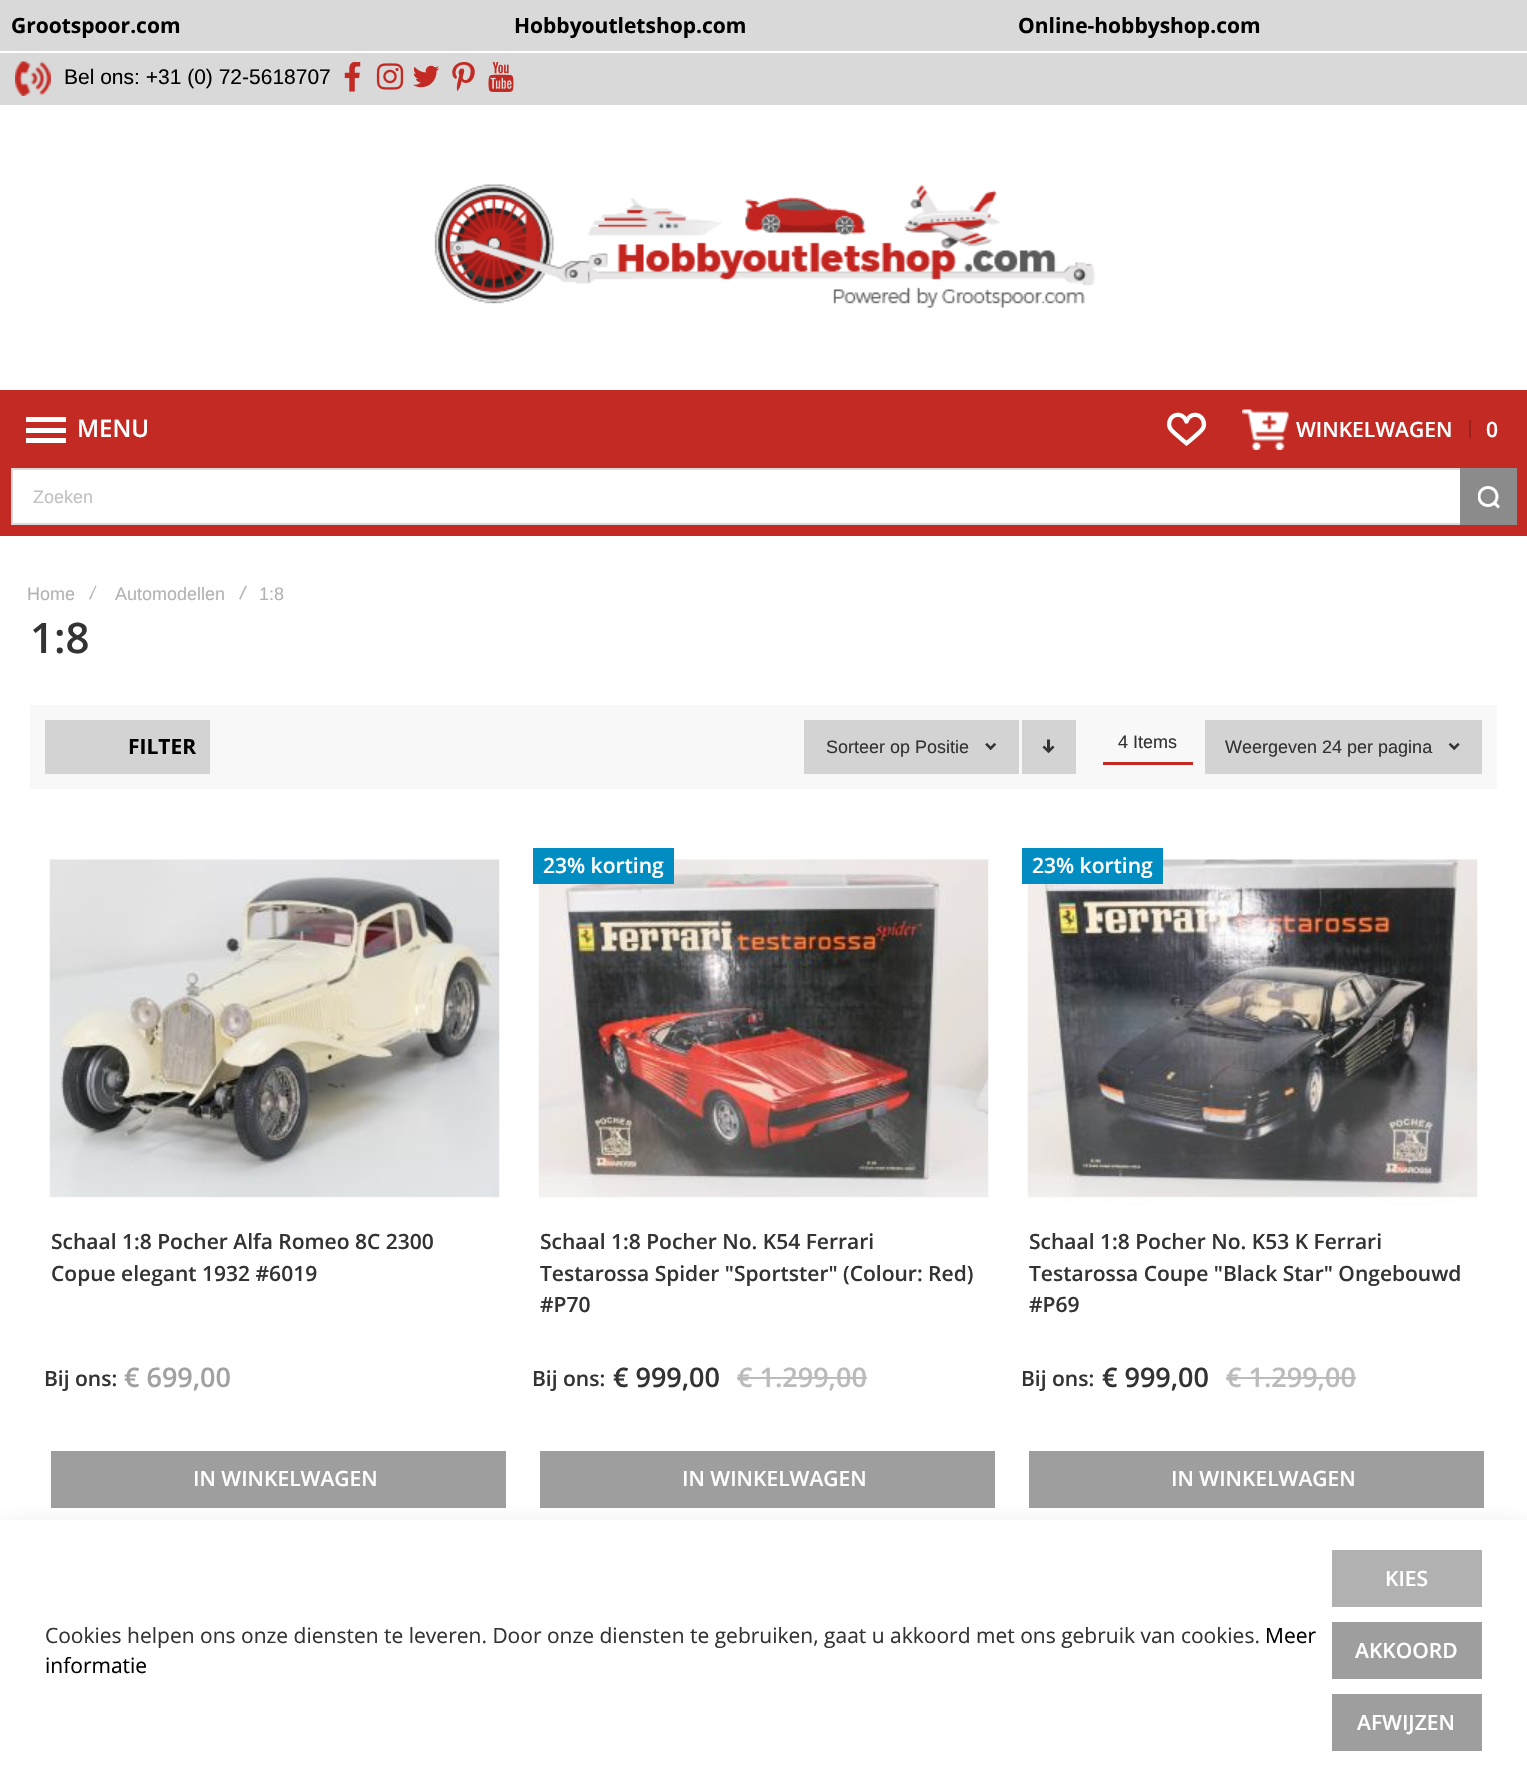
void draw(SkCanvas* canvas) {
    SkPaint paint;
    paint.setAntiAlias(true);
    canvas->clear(0xFFFFFFFF);
    paint.setColor(0xFFD9D9D9);
    canvas->drawRect(SkRect::MakeXYWH(0, 0, 1527, 51), paint);
    SkFont font1(fontMgr->matchFamilyStyle("Open Sans", SkFontStyle::Bold()), 21);
    font1.setSubpixel(true);
    paint.setColor(0xFF000000);
    canvas->drawString("Grootspoor.com", 11, 33, font1, paint);
    canvas->drawString("Hobbyoutletshop.com", 514, 33, font1, paint);
    canvas->drawString("Online-hobbyshop.com", 1018, 33, font1, paint);
    paint.setColor(0xFFD9D9D9);
    canvas->drawRect(SkRect::MakeXYWH(0, 53, 1527, 52), paint);
    canvas->drawImageRect(SkImages::DeferredFromEncodedData(SkData::MakeFromFileName("img1.png")), SkRect::MakeXYWH(15, 61, 36, 35), SkSamplingOptions());
    SkFont font2(fontMgr->matchFamilyStyle("Liberation Sans", SkFontStyle::Normal()), 21);
    font2.setSubpixel(true);
    paint.setColor(0xFF000000);
    canvas->drawString("Bel ons: +31 (0) 72-5618707", 64, 84, font2, paint);
    canvas->drawImageRect(SkImages::DeferredFromEncodedData(SkData::MakeFromFileName("img2.png")), SkRect::MakeXYWH(344, 62, 17, 30), SkSamplingOptions());
    canvas->drawImageRect(SkImages::DeferredFromEncodedData(SkData::MakeFromFileName("img3.png")), SkRect::MakeXYWH(376, 63, 28, 27), SkSamplingOptions());
    canvas->drawImageRect(SkImages::DeferredFromEncodedData(SkData::MakeFromFileName("img4.png")), SkRect::MakeXYWH(413, 65, 26, 23), SkSamplingOptions());
    canvas->drawImageRect(SkImages::DeferredFromEncodedData(SkData::MakeFromFileName("img5.png")), SkRect::MakeXYWH(452, 62, 23, 30), SkSamplingOptions());
    SkFont font3(fontMgr->matchFamilyStyle("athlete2", SkFontStyle::Normal()), 30);
    font3.setSubpixel(true);
    paint.setColor(0xFFC22A23);
    canvas->drawString("4", 486, 92, font3, paint);
    canvas->drawImageRect(SkImages::DeferredFromEncodedData(SkData::MakeFromFileName("img6.png")), SkRect::MakeXYWH(434, 184, 661, 124), SkSamplingOptions());
    canvas->drawRect(SkRect::MakeXYWH(0, 390, 1527, 146), paint);
    paint.setColor(0xFFFFFFFF);
    canvas->drawRect(SkRect::MakeXYWH(26, 417, 40, 5), paint);
    canvas->drawRect(SkRect::MakeXYWH(26, 428, 40, 5), paint);
    canvas->drawRect(SkRect::MakeXYWH(26, 438, 40, 5), paint);
    SkFont font4(fontMgr->matchFamilyStyle("Open Sans", SkFontStyle(600, SkFontStyle::kNormal_Width, SkFontStyle::kUpright_Slant)), 24);
    font4.setSubpixel(true);
    canvas->drawString("MENU", 77, 437, font4, paint);
    canvas->drawImageRect(SkImages::DeferredFromEncodedData(SkData::MakeFromFileName("img7.png")), SkRect::MakeXYWH(1167, 412, 40, 34), SkSamplingOptions());
    canvas->drawImageRect(SkImages::DeferredFromEncodedData(SkData::MakeFromFileName("img8.png")), SkRect::MakeXYWH(1242, 409, 47, 41), SkSamplingOptions());
    SkFont font5(fontMgr->matchFamilyStyle("Open Sans", SkFontStyle(600, SkFontStyle::kNormal_Width, SkFontStyle::kUpright_Slant)), 21);
    font5.setSubpixel(true);
    canvas->drawString("WINKELWAGEN", 1296, 437, font5, paint);
    paint.setColor(0xFF99211C);
    canvas->drawRect(SkRect::MakeXYWH(1469, 420, 2, 18), paint);
    paint.setColor(0xFFFFFFFF);
    canvas->drawString("0", 1486, 437, font5, paint);
    canvas->drawRect(SkRect::MakeXYWH(13, 470, 1447, 53), paint);
    paint.setStyle(SkPaint::kStroke_Style);
    paint.setStrokeWidth(2);
    paint.setColor(0xFFD9D9D9);
    canvas->drawRect(SkRect::MakeXYWH(12, 469, 1504, 55), paint);
    SkFont font6(fontMgr->matchFamilyStyle("Liberation Sans", SkFontStyle::Normal()), 18);
    font6.setSubpixel(true);
    paint.setStyle(SkPaint::kFill_Style);
    paint.setColor(0xFFC2C2C2);
    canvas->drawString("Zoeken", 33, 503, font6, paint);
    paint.setColor(0xFF8B8B8B);
    canvas->drawRect(SkRect::MakeXYWH(1460, 468, 57, 57), paint);
    canvas->drawImageRect(SkImages::DeferredFromEncodedData(SkData::MakeFromFileName("img9.png")), SkRect::MakeXYWH(1478, 486, 22, 23), SkSamplingOptions());
    paint.setColor(0xFFB3B3B3);
    canvas->drawString("Home", 27, 600, font6, paint);
    canvas->drawPath(SkPathBuilder().moveTo(95.5f, 585.5f).lineTo(96.5f, 586).lineTo(90.5f, 599.5f).lineTo(89, 599).close().detach(), paint);
    canvas->drawString("Automodellen", 115, 600, font6, paint);
    canvas->drawPath(SkPathBuilder().moveTo(245.5f, 585.5f).lineTo(247, 586).lineTo(240.5f, 599.5f).lineTo(239, 599).close().detach(), paint);
    canvas->drawString("1:8", 259, 600, font6, paint);
    SkFont font7(fontMgr->matchFamilyStyle("Open Sans", SkFontStyle(600, SkFontStyle::kNormal_Width, SkFontStyle::kUpright_Slant)), 42);
    font7.setSubpixel(true);
    paint.setColor(0xFF333333);
    canvas->drawString("1:8", 30, 653, font7, paint);
    paint.setColor(0xFFF8F8F8);
    canvas->drawRect(SkRect::MakeXYWH(30, 705, 1467, 84), paint);
    paint.setColor(0xFFD3D3D3);
    canvas->drawRect(SkRect::MakeXYWH(45, 720, 165, 54), paint);
    paint.setColor(0xFF000000);
    canvas->drawString("FILTER", 128, 754, font1, paint);
    paint.setColor(0xFFD3D3D3);
    canvas->drawRect(SkRect::MakeXYWH(804, 720, 215, 54), paint);
    paint.setColor(0xFF333333);
    canvas->drawString("Sorteer op Positie", 826, 753, font6, paint);
    canvas->drawImageRect(SkImages::DeferredFromEncodedData(SkData::MakeFromFileName("img10.png")), SkRect::MakeXYWH(985, 742, 12, 9), SkSamplingOptions());
    paint.setColor(0xFFD3D3D3);
    canvas->drawRect(SkRect::MakeXYWH(1022, 720, 54, 54), paint);
    canvas->drawImageRect(SkImages::DeferredFromEncodedData(SkData::MakeFromFileName("img11.png")), SkRect::MakeXYWH(1042, 739, 13, 14), SkSamplingOptions());
    paint.setColor(0xFF333333);
    canvas->drawString("4 Items", 1118, 748, font6, paint);
    paint.setColor(0xFFC22A23);
    canvas->drawRect(SkRect::MakeXYWH(1103, 762, 90, 3), paint);
    paint.setColor(0xFFD3D3D3);
    canvas->drawRect(SkRect::MakeXYWH(1205, 720, 277, 54), paint);
    paint.setColor(0xFF333333);
    canvas->drawString("Weergeven 24 per pagina", 1225, 753, font6, paint);
    canvas->drawImageRect(SkImages::DeferredFromEncodedData(SkData::MakeFromFileName("img12.png")), SkRect::MakeXYWH(1448, 742, 12, 9), SkSamplingOptions());
    canvas->drawImageRect(SkImages::DeferredFromEncodedData(SkData::MakeFromFileName("img13.png")), SkRect::MakeXYWH(49, 859, 451, 339), SkSamplingOptions());
    canvas->drawString("Schaal 1:8 Pocher Alfa Romeo 8C 2300", 51, 1249, font5, paint);
    canvas->drawString("Copue elegant 1932 #6019", 51, 1281, font5, paint);
    canvas->drawString("Bij ons:", 44, 1386, font5, paint);
    SkFont font8(fontMgr->matchFamilyStyle("Open Sans", SkFontStyle(600, SkFontStyle::kNormal_Width, SkFontStyle::kUpright_Slant)), 27);
    font8.setSubpixel(true);
    paint.setColor(0xFFA1A1A2);
    canvas->drawString("€ 699,00", 124, 1387, font8, paint);
    paint.setColor(0xFF9E9E9E);
    canvas->drawRect(SkRect::MakeXYWH(51, 1451, 455, 57), paint);
    paint.setColor(0xFFFFFFFF);
    canvas->drawString("IN WINKELWAGEN", 193, 1486, font5, paint);
    canvas->drawImageRect(SkImages::DeferredFromEncodedData(SkData::MakeFromFileName("img14.png")), SkRect::MakeXYWH(538, 859, 451, 339), SkSamplingOptions());
    paint.setColor(0xFF018DC2);
    canvas->drawRect(SkRect::MakeXYWH(533, 848, 141, 36), paint);
    paint.setColor(0xFFFFFFFF);
    canvas->drawString("23% korting", 543, 873, font5, paint);
    paint.setColor(0xFF333333);
    canvas->drawString("Schaal 1:8 Pocher No. K54 Ferrari", 540, 1249, font5, paint);
    canvas->drawString("Testarossa Spider \"Sportster\" (Colour: Red)", 540, 1281, font5, paint);
    canvas->drawString("#P70", 540, 1312, font5, paint);
    canvas->drawString("Bij ons:", 532, 1386, font5, paint);
    canvas->drawString("€ 999,00", 613, 1387, font8, paint);
    paint.setColor(0xFFBBBBBB);
    canvas->drawString("€ 1.299,00", 737, 1387, font8, paint);
    canvas->drawRect(SkRect::MakeXYWH(737, 1377, 130, 2), paint);
    paint.setColor(0xFF9E9E9E);
    canvas->drawRect(SkRect::MakeXYWH(540, 1451, 455, 57), paint);
    paint.setColor(0xFFFFFFFF);
    canvas->drawString("IN WINKELWAGEN", 682, 1486, font5, paint);
    canvas->drawImageRect(SkImages::DeferredFromEncodedData(SkData::MakeFromFileName("img15.png")), SkRect::MakeXYWH(1027, 859, 451, 345), SkSamplingOptions());
    paint.setColor(0xFF018DC2);
    canvas->drawRect(SkRect::MakeXYWH(1022, 848, 141, 36), paint);
    paint.setColor(0xFFFFFFFF);
    canvas->drawString("23% korting", 1032, 873, font5, paint);
    paint.setColor(0xFF333333);
    canvas->drawString("Schaal 1:8 Pocher No. K53 K Ferrari", 1029, 1249, font5, paint);
    canvas->drawString("Testarossa Coupe \"Black Star\" Ongebouwd", 1029, 1281, font5, paint);
    canvas->drawString("#P69", 1029, 1312, font5, paint);
    canvas->drawString("Bij ons:", 1021, 1386, font5, paint);
    canvas->drawString("€ 999,00", 1102, 1387, font8, paint);
    paint.setColor(0xFFBBBBBB);
    canvas->drawString("€ 1.299,00", 1226, 1387, font8, paint);
    canvas->drawRect(SkRect::MakeXYWH(1226, 1377, 130, 2), paint);
    paint.setColor(0xFF9E9E9E);
    canvas->drawRect(SkRect::MakeXYWH(1029, 1451, 455, 57), paint);
    paint.setColor(0xFFFFFFFF);
    canvas->drawString("IN WINKELWAGEN", 1171, 1486, font5, paint);
    paint.setColor(0x26252C61);
    paint.setMaskFilter(SkMaskFilter::MakeBlur(kNormal_SkBlurStyle, 11));
    canvas->drawRect(SkRect::MakeXYWH(0, 1527, 1527, 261), paint);
    paint.setMaskFilter(nullptr);
    paint.setColor(0xFFFFFFFF);
    canvas->drawRect(SkRect::MakeXYWH(0, 1520, 1527, 260), paint);
    SkFont font9(fontMgr->matchFamilyStyle("Open Sans", SkFontStyle::Normal()), 21);
    font9.setSubpixel(true);
    paint.setColor(0xFF333333);
    canvas->drawString("Cookies helpen ons onze diensten te leveren. Door onze diensten te gebruiken, gaat u akkoord met ons gebruik van cookies.", 45, 1643, font9, paint);
    paint.setColor(0xFF000000);
    canvas->drawString("Meer", 1265, 1643, font9, paint);
    canvas->drawString("informatie", 45, 1673, font9, paint);
    paint.setColor(0xFFB1B1B1);
    canvas->drawRect(SkRect::MakeXYWH(1332, 1550, 150, 57), paint);
    paint.setColor(0xFFFFFFFF);
    canvas->drawString("KIES", 1385, 1586, font5, paint);
    paint.setColor(0xFF9E9E9E);
    canvas->drawRect(SkRect::MakeXYWH(1332, 1622, 150, 57), paint);
    paint.setColor(0xFFFFFFFF);
    canvas->drawString("AKKOORD", 1355, 1658, font5, paint);
    paint.setColor(0xFF9E9E9E);
    canvas->drawRect(SkRect::MakeXYWH(1332, 1694, 150, 57), paint);
    paint.setColor(0xFFFFFFFF);
    canvas->drawString("AFWIJZEN", 1357, 1730, font5, paint);
}
